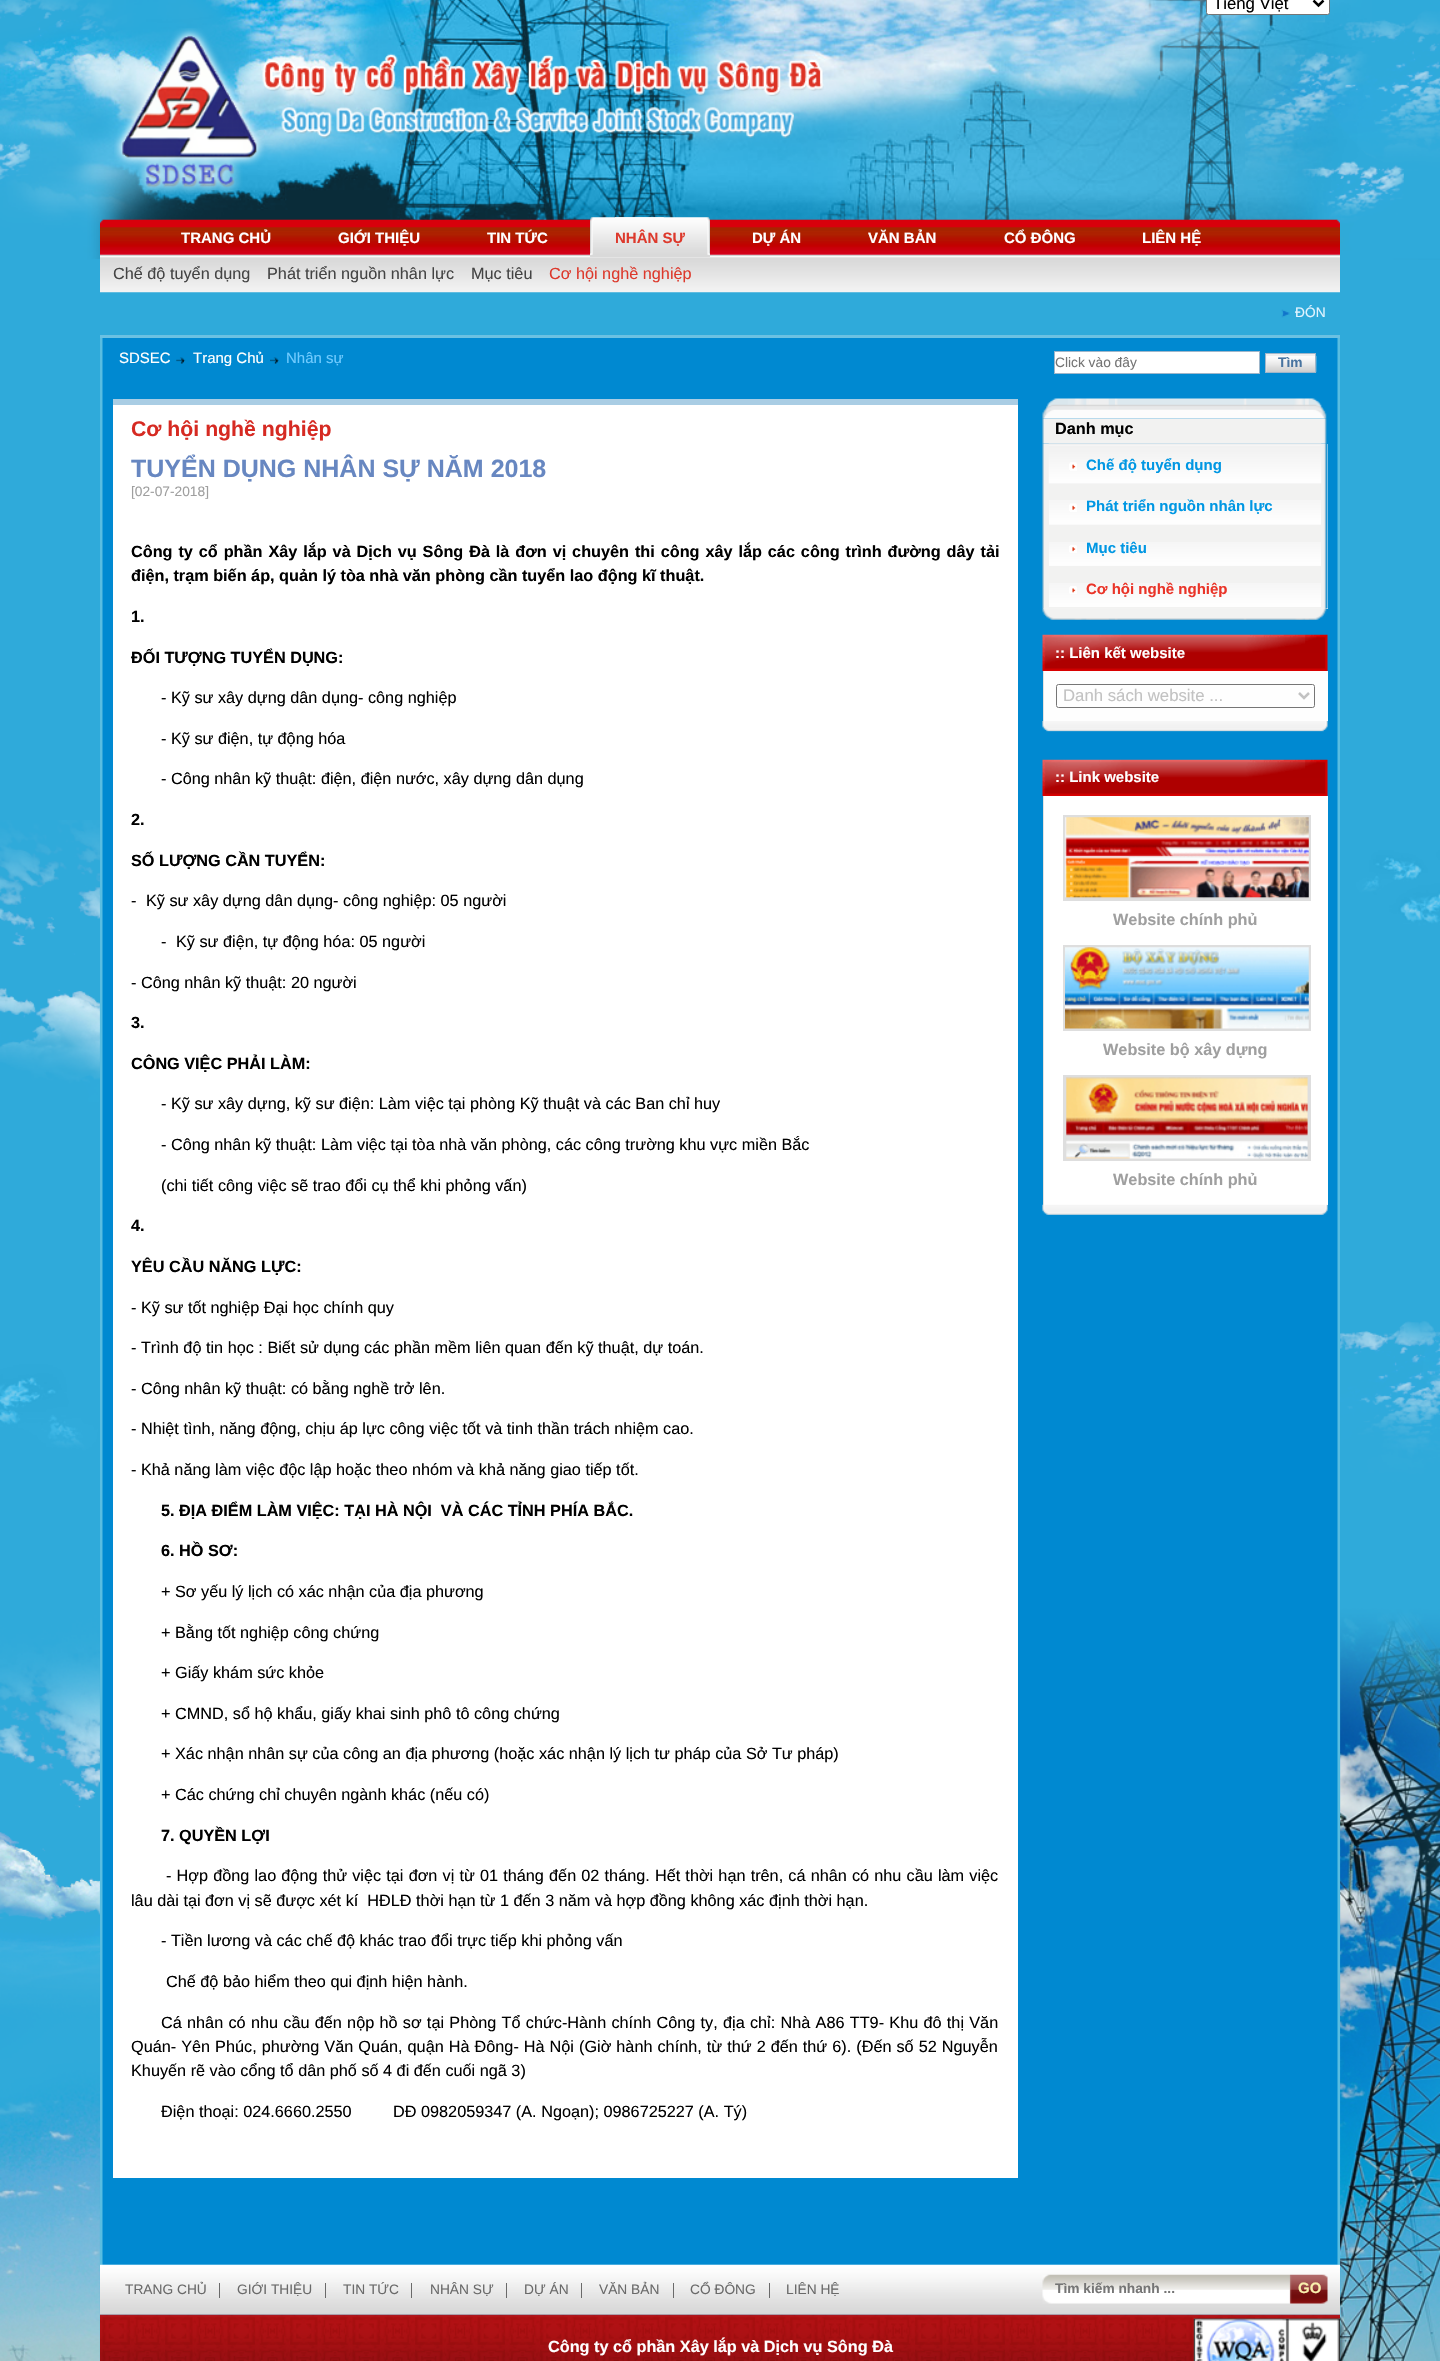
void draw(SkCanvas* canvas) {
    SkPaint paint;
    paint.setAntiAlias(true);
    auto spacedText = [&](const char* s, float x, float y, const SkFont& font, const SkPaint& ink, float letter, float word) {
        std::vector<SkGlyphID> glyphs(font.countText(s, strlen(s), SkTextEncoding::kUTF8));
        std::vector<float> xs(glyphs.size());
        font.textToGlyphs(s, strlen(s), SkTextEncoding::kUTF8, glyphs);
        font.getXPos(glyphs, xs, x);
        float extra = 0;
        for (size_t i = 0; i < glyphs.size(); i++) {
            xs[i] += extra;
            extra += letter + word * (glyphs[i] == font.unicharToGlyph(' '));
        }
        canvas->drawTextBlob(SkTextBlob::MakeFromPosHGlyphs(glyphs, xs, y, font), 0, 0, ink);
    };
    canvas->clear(0xFF2FAADA);
    canvas->drawImageRect(SkImages::DeferredFromEncodedData(SkData::MakeFromFileName("img1.png")), SkRect::MakeXYWH(0, 0, 1440, 260), SkSamplingOptions());
    paint.setColor(0xFFFFFFFF);
    canvas->drawRoundRect(SkRect::MakeXYWH(1206.5f, -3.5f, 123, 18), 2, 2, paint);
    paint.setStyle(SkPaint::kStroke_Style);
    paint.setStrokeWidth(1);
    paint.setColor(0xFF767676);
    canvas->drawRoundRect(SkRect::MakeXYWH(1206.5f, -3.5f, 123, 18), 2, 2, paint);
    paint.setStrokeWidth(2.5f);
    paint.setColor(0xFF000000);
    canvas->drawPath(SkPathBuilder().moveTo(1313.5f, 0.5f).lineTo(1318.5f, 5.5f).lineTo(1323.5f, 0.5f).detach(), paint);
    SkFont font1(fontMgr->matchFamilyStyle("Liberation Sans", SkFontStyle::Normal()), 16.75f);
    font1.setSubpixel(true);
    paint.setStyle(SkPaint::kFill_Style);
    canvas->drawString("Tiếng Việt", 1213, 9, font1, paint);
    canvas->drawImageRect(SkImages::DeferredFromEncodedData(SkData::MakeFromFileName("img2.png")), SkRect::MakeXYWH(114, 28, 710, 167), SkSamplingOptions());
    canvas->drawImageRect(SkImages::DeferredFromEncodedData(SkData::MakeFromFileName("img3.png")), SkRect::MakeXYWH(100, 219, 1240, 74), SkSamplingOptions());
    SkFont font2(fontMgr->matchFamilyStyle("Liberation Sans", SkFontStyle::Bold()), 15);
    font2.setSubpixel(true);
    paint.setColor(0xFFFFFFFF);
    canvas->drawString("TRANG CHỦ", 181, 243, font2, paint);
    canvas->drawString("GIỚI THIỆU", 338, 243, font2, paint);
    canvas->drawString("TIN TỨC", 487, 243, font2, paint);
    canvas->drawImageRect(SkImages::DeferredFromEncodedData(SkData::MakeFromFileName("img4.png")), SkRect::MakeXYWH(590, 217, 74, 40), SkSamplingOptions());
    canvas->drawImageRect(SkImages::DeferredFromEncodedData(SkData::MakeFromFileName("img5.png")), SkRect::MakeXYWH(615, 217, 95, 40), SkSamplingOptions());
    paint.setColor(0xFFDD392C);
    canvas->drawString("NHÂN SỰ", 615, 243, font2, paint);
    paint.setColor(0xFFFFFFFF);
    canvas->drawString("DỰ ÁN", 752, 243, font2, paint);
    canvas->drawString("VĂN BẢN", 868, 243, font2, paint);
    canvas->drawString("CỔ ĐÔNG", 1004, 243, font2, paint);
    canvas->drawString("LIÊN HỆ", 1142, 243, font2, paint);
    SkFont font3(fontMgr->matchFamilyStyle("Liberation Sans", SkFontStyle::Normal()), 16.25f);
    font3.setSubpixel(true);
    paint.setColor(0xFF444444);
    canvas->drawString("Chế độ tuyển dụng", 113, 279, font3, paint);
    canvas->drawString("Phát triển nguồn nhân lực", 267, 279, font3, paint);
    canvas->drawString("Mục tiêu", 471, 279, font3, paint);
    paint.setColor(0xFFDD392C);
    canvas->drawString("Cơ hội nghề nghiệp", 549, 279, font3, paint);
    paint.setColor(0xFF6BC1E2);
    canvas->drawRect(SkRect::MakeXYWH(100, 335, 1240, 3), paint);
    canvas->drawImageRect(SkImages::DeferredFromEncodedData(SkData::MakeFromFileName("img6.png")), SkRect::MakeXYWH(1281, 309, 9, 9), SkSamplingOptions());
    SkFont font4(fontMgr->matchFamilyStyle("Liberation Sans", SkFontStyle::Normal()), 13.75f);
    font4.setSubpixel(true);
    paint.setColor(0xFFE2F4FF);
    canvas->drawString("ĐÓN", 1295, 317, font4, paint);
    canvas->drawImageRect(SkImages::DeferredFromEncodedData(SkData::MakeFromFileName("img7.png")), SkRect::MakeXYWH(0, 820, 1440, 1541), SkSamplingOptions());
    canvas->drawImageRect(SkImages::DeferredFromEncodedData(SkData::MakeFromFileName("img8.png")), SkRect::MakeXYWH(100, 338, 1240, 1927), SkSamplingOptions());
    SkFont font5(fontMgr->matchFamilyStyle("Liberation Sans", SkFontStyle::Normal()), 15);
    font5.setSubpixel(true);
    paint.setColor(0xFFFFFFFF);
    canvas->drawString("SDSEC", 119, 363, font5, paint);
    canvas->drawImageRect(SkImages::DeferredFromEncodedData(SkData::MakeFromFileName("img9.png")), SkRect::MakeXYWH(176, 357, 10, 7), SkSamplingOptions());
    canvas->drawString("Trang Chủ", 193, 363, font5, paint);
    canvas->drawImageRect(SkImages::DeferredFromEncodedData(SkData::MakeFromFileName("img10.png")), SkRect::MakeXYWH(270, 357, 9, 7), SkSamplingOptions());
    paint.setColor(0xFF70CBFF);
    canvas->drawString("Nhân sự", 286, 363, font5, paint);
    paint.setColor(0xFFFFFFFF);
    canvas->drawRect(SkRect::MakeXYWH(1054.5f, 351.5f, 205, 22), paint);
    paint.setStyle(SkPaint::kStroke_Style);
    paint.setStrokeWidth(1);
    paint.setColor(0xFF9FB6CA);
    canvas->drawRect(SkRect::MakeXYWH(1054.5f, 351.5f, 205, 22), paint);
    paint.setStyle(SkPaint::kFill_Style);
    paint.setColor(0xFF757575);
    canvas->drawString("Click vào đây", 1055, 367, font4, paint);
    paint.setColor(0xFFEFEFEF);
    canvas->drawRect(SkRect::MakeXYWH(1266, 354, 49, 18), paint);
    canvas->drawImageRect(SkImages::DeferredFromEncodedData(SkData::MakeFromFileName("img11.png")), SkRect::MakeXYWH(1266, 355, 51, 18), SkSamplingOptions());
    paint.setStyle(SkPaint::kStroke_Style);
    paint.setColor(0xFF9FB6CA);
    canvas->drawRect(SkRect::MakeXYWH(1265.5f, 353.5f, 50, 19), paint);
    SkFont font6(fontMgr->matchFamilyStyle("Liberation Sans", SkFontStyle::Bold()), 13.75f);
    font6.setSubpixel(true);
    paint.setStyle(SkPaint::kFill_Style);
    paint.setColor(0xFF4874A0);
    canvas->drawString("Tìm", 1278, 367, font6, paint);
    paint.setColor(0xFFFFFFFF);
    canvas->drawRect(SkRect::MakeXYWH(113, 405, 905, 1773), paint);
    paint.setColor(0xFFA9CDE4);
    canvas->drawRect(SkRect::MakeXYWH(113, 399, 905, 6), paint);
    SkFont font7(fontMgr->matchFamilyStyle("Liberation Sans", SkFontStyle::Bold()), 21.25f);
    font7.setSubpixel(true);
    paint.setColor(0xFFD62A22);
    canvas->drawString("Cơ hội nghề nghiệp", 131, 436, font7, paint);
    SkFont font8(fontMgr->matchFamilyStyle("Liberation Sans", SkFontStyle::Bold()), 25);
    font8.setSubpixel(true);
    paint.setColor(0xFF6787C1);
    canvas->drawString("TUYỂN DỤNG NHÂN SỰ NĂM 2018", 131, 477, font8, paint);
    paint.setColor(0xFF9F9F9F);
    canvas->drawString("[02-07-2018]", 131, 496, font4, paint);
    SkFont font9(fontMgr->matchFamilyStyle("Liberation Sans", SkFontStyle::Bold()), 16.25f);
    font9.setSubpixel(true);
    paint.setColor(0xFF000000);
    spacedText("Công ty cổ phần Xây lắp và Dịch vụ Sông Đà là đơn vị chuyên thi công xây lắp các công trình đường dây tải", 131, 557, font9, paint, 0, 1.4f);
    canvas->drawString("điện, trạm biến áp, quản lý tòa nhà văn phòng cần tuyển lao động kĩ thuật.", 131, 581, font9, paint);
    canvas->drawString("1.", 131, 622, font9, paint);
    canvas->drawString("ĐỐI TƯỢNG TUYỂN DỤNG:", 131, 663, font9, paint);
    canvas->drawString("- Kỹ sư xây dựng dân dụng- công nghiệp", 161, 703, font3, paint);
    canvas->drawString("- Kỹ sư điện, tự động hóa", 161, 744, font3, paint);
    canvas->drawString("- Công nhân kỹ thuật: điện, điện nước, xây dựng dân dụng", 161, 784, font3, paint);
    canvas->drawString("2.", 131, 825, font9, paint);
    canvas->drawString("SỐ LƯỢNG CẦN TUYỂN:", 131, 866, font9, paint);
    canvas->drawString("-", 131, 906, font3, paint);
    canvas->drawString("Kỹ sư xây dựng dân dụng- công nghiệp: 05 người", 146, 906, font3, paint);
    canvas->drawString("-", 161, 947, font3, paint);
    canvas->drawString("Kỹ sư điện, tự động hóa: 05 người", 176, 947, font3, paint);
    canvas->drawString("- Công nhân kỹ thuật: 20 người", 131, 988, font3, paint);
    canvas->drawString("3.", 131, 1028, font9, paint);
    canvas->drawString("CÔNG VIỆC PHẢI LÀM:", 131, 1069, font9, paint);
    canvas->drawString("- Kỹ sư xây dựng, kỹ sư điện: Làm việc tại phòng Kỹ thuật và các Ban chỉ huy", 161, 1109, font3, paint);
    canvas->drawString("- Công nhân kỹ thuật: Làm việc tại tòa nhà văn phòng, các công trường khu vực miền Bắc", 161, 1150, font3, paint);
    canvas->drawString("(chi tiết công việc sẽ trao đổi cụ thể khi phỏng vấn)", 161, 1191, font3, paint);
    canvas->drawString("4.", 131, 1231, font9, paint);
    canvas->drawString("YÊU CẦU NĂNG LỰC:", 131, 1272, font9, paint);
    canvas->drawString("- Kỹ sư tốt nghiệp Đại học chính quy", 131, 1313, font3, paint);
    canvas->drawString("- Trình độ tin học : Biết sử dụng các phần mềm liên quan đến kỹ thuật, dự toán.", 131, 1353, font3, paint);
    canvas->drawString("- Công nhân kỹ thuật: có bằng nghề trở lên.", 131, 1394, font3, paint);
    canvas->drawString("- Nhiệt tình, năng động, chịu áp lực công việc tốt và tinh thần trách nhiệm cao.", 131, 1434, font3, paint);
    canvas->drawString("- Khả năng làm việc độc lập hoặc theo nhóm và khả năng giao tiếp tốt.", 131, 1475, font3, paint);
    canvas->drawString("5. ĐỊA ĐIỂM LÀM VIỆC: TẠI HÀ NỘI  VÀ CÁC TỈNH PHÍA BẮC.", 161, 1516, font9, paint);
    canvas->drawString("6. HỒ SƠ:", 161, 1556, font9, paint);
    canvas->drawString("+ Sơ yếu lý lịch có xác nhận của địa phương", 161, 1597, font3, paint);
    canvas->drawString("+ Bằng tốt nghiệp công chứng", 161, 1638, font3, paint);
    canvas->drawString("+ Giấy khám sức khỏe", 161, 1678, font3, paint);
    canvas->drawString("+ CMND, sổ hộ khẩu, giấy khai sinh phô tô công chứng", 161, 1719, font3, paint);
    canvas->drawString("+ Xác nhận nhân sự của công an địa phương (hoặc xác nhận lý lịch tư pháp của Sở Tư pháp)", 161, 1759, font3, paint);
    canvas->drawString("+ Các chứng chỉ chuyên ngành khác (nếu có)", 161, 1800, font3, paint);
    canvas->drawString("7. QUYỀN LỢI", 161, 1841, font9, paint);
    spacedText("- Hợp đồng lao động thử việc tại đơn vị từ 01 tháng đến 02 tháng. Hết thời hạn trên, cá nhân có nhu cầu làm việc", 166, 1881, font3, paint, 0, 0.65f);
    canvas->drawString("lâu dài tại đơn vị sẽ được xét kí  HĐLĐ thời hạn từ 1 đến 3 năm và hợp đồng không xác định thời hạn.", 131, 1906, font3, paint);
    canvas->drawString("- Tiền lương và các chế độ khác trao đổi trực tiếp khi phỏng vấn", 161, 1946, font3, paint);
    canvas->drawString("Chế độ bảo hiểm theo qui định hiện hành.", 166, 1987, font3, paint);
    spacedText("Cá nhân có nhu cầu đến nộp hồ sơ tại Phòng Tổ chức-Hành chính Công ty, địa chỉ: Nhà A86 TT9- Khu đô thị Văn", 161, 2028, font3, paint, 0, 0.75f);
    spacedText("Quán- Yên Phúc, phường Văn Quán, quận Hà Đông- Hà Nội (Giờ hành chính, từ thứ 2 đến thứ 6). (Đến số 52 Nguyễn", 131, 2052, font3, paint, 0, 0.5f);
    canvas->drawString("Khuyến rẽ vào cổng tổ dân phố số 4 đi đến cuối ngã 3)", 131, 2076, font3, paint);
    canvas->drawString("Điện thoại: 024.6660.2550", 161, 2117, font3, paint);
    canvas->drawString("DĐ 0982059347 (A. Ngoạn); 0986725227 (A. Tý)", 393, 2117, font3, paint);
    canvas->drawImageRect(SkImages::DeferredFromEncodedData(SkData::MakeFromFileName("img12.png")), SkRect::MakeXYWH(1042, 398, 285, 21), SkSamplingOptions());
    canvas->drawImageRect(SkImages::DeferredFromEncodedData(SkData::MakeFromFileName("img13.png")), SkRect::MakeXYWH(1042, 418, 285, 26), SkSamplingOptions());
    canvas->drawString("Danh mục", 1055, 434, font9, paint);
    paint.setColor(0xFFF7F6F5);
    canvas->drawRect(SkRect::MakeXYWH(1043, 444, 285, 165), paint);
    canvas->drawImageRect(SkImages::DeferredFromEncodedData(SkData::MakeFromFileName("img14.png")), SkRect::MakeXYWH(1042, 443, 286, 166), SkSamplingOptions());
    canvas->drawImageRect(SkImages::DeferredFromEncodedData(SkData::MakeFromFileName("img15.png")), SkRect::MakeXYWH(1048, 443, 274, 41), SkSamplingOptions());
    canvas->drawImageRect(SkImages::DeferredFromEncodedData(SkData::MakeFromFileName("img16.png")), SkRect::MakeXYWH(1069, 462, 8, 9), SkSamplingOptions());
    paint.setColor(0xFF0097E3);
    canvas->drawString("Chế độ tuyển dụng", 1086, 470, font2, paint);
    canvas->drawImageRect(SkImages::DeferredFromEncodedData(SkData::MakeFromFileName("img17.png")), SkRect::MakeXYWH(1049, 500, 272, 25), SkSamplingOptions());
    canvas->drawImageRect(SkImages::DeferredFromEncodedData(SkData::MakeFromFileName("img18.png")), SkRect::MakeXYWH(1069, 503, 8, 9), SkSamplingOptions());
    canvas->drawString("Phát triển nguồn nhân lực", 1086, 511, font2, paint);
    canvas->drawImageRect(SkImages::DeferredFromEncodedData(SkData::MakeFromFileName("img19.png")), SkRect::MakeXYWH(1049, 542, 272, 24), SkSamplingOptions());
    canvas->drawImageRect(SkImages::DeferredFromEncodedData(SkData::MakeFromFileName("img20.png")), SkRect::MakeXYWH(1069, 545, 8, 8), SkSamplingOptions());
    canvas->drawString("Mục tiêu", 1086, 553, font2, paint);
    canvas->drawImageRect(SkImages::DeferredFromEncodedData(SkData::MakeFromFileName("img21.png")), SkRect::MakeXYWH(1049, 583, 272, 24), SkSamplingOptions());
    canvas->drawImageRect(SkImages::DeferredFromEncodedData(SkData::MakeFromFileName("img22.png")), SkRect::MakeXYWH(1069, 586, 8, 8), SkSamplingOptions());
    paint.setColor(0xFFEA3428);
    canvas->drawString("Cơ hội nghề nghiệp", 1086, 594, font2, paint);
    canvas->drawImageRect(SkImages::DeferredFromEncodedData(SkData::MakeFromFileName("img23.png")), SkRect::MakeXYWH(1042, 608, 285, 12), SkSamplingOptions());
    canvas->drawImageRect(SkImages::DeferredFromEncodedData(SkData::MakeFromFileName("img24.png")), SkRect::MakeXYWH(1042, 634, 286, 37), SkSamplingOptions());
    paint.setColor(0xFFFFFFFF);
    canvas->drawString(":: Liên kết website", 1055, 658, font2, paint);
    paint.setColor(0xFFFEFEFE);
    canvas->drawRect(SkRect::MakeXYWH(1044, 671, 284, 50), paint);
    paint.setColor(0xFFE2E2E2);
    canvas->drawRect(SkRect::MakeXYWH(1043, 671, 1, 50), paint);
    paint.setStyle(SkPaint::kStroke_Style);
    paint.setColor(0xFF767676);
    canvas->drawRoundRect(SkRect::MakeXYWH(1056.5f, 684.5f, 258, 23), 2, 2, paint);
    paint.setStrokeWidth(2.5f);
    paint.setColor(0xFFC2C2C2);
    canvas->drawPath(SkPathBuilder().moveTo(1299, 693).lineTo(1304, 698).lineTo(1309, 693).detach(), paint);
    paint.setStyle(SkPaint::kFill_Style);
    canvas->drawString("Danh sách website ...", 1063, 701, font1, paint);
    canvas->drawImageRect(SkImages::DeferredFromEncodedData(SkData::MakeFromFileName("img25.png")), SkRect::MakeXYWH(1042, 721, 286, 11), SkSamplingOptions());
    canvas->drawImageRect(SkImages::DeferredFromEncodedData(SkData::MakeFromFileName("img24.png")), SkRect::MakeXYWH(1042, 759, 286, 37), SkSamplingOptions());
    paint.setColor(0xFFFFFFFF);
    canvas->drawString(":: Link website", 1055, 782, font2, paint);
    canvas->drawRect(SkRect::MakeXYWH(1044, 796, 284, 409), paint);
    paint.setColor(0xFFE2E2E2);
    canvas->drawRect(SkRect::MakeXYWH(1043, 796, 1, 409), paint);
    paint.setStyle(SkPaint::kStroke_Style);
    paint.setStrokeWidth(3);
    paint.setColor(0xFFDEDEDE);
    canvas->drawRect(SkRect::MakeXYWH(1064.5f, 816.5f, 245, 83), paint);
    canvas->drawImageRect(SkImages::DeferredFromEncodedData(SkData::MakeFromFileName("img26.png")), SkRect::MakeXYWH(1065, 817, 244, 82), SkSamplingOptions());
    paint.setStyle(SkPaint::kFill_Style);
    paint.setColor(0xFF9F9F9F);
    canvas->drawString("Website chính phủ", 1113, 925, font9, paint);
    paint.setStyle(SkPaint::kStroke_Style);
    paint.setColor(0xFFDEDEDE);
    canvas->drawRect(SkRect::MakeXYWH(1064.5f, 946.5f, 245, 83), paint);
    canvas->drawImageRect(SkImages::DeferredFromEncodedData(SkData::MakeFromFileName("img27.png")), SkRect::MakeXYWH(1065, 947, 244, 82), SkSamplingOptions());
    paint.setStyle(SkPaint::kFill_Style);
    paint.setColor(0xFF9F9F9F);
    canvas->drawString("Website bộ xây dựng", 1103, 1055, font9, paint);
    paint.setStyle(SkPaint::kStroke_Style);
    paint.setColor(0xFFDEDEDE);
    canvas->drawRect(SkRect::MakeXYWH(1064.5f, 1076.5f, 245, 83), paint);
    canvas->drawImageRect(SkImages::DeferredFromEncodedData(SkData::MakeFromFileName("img28.png")), SkRect::MakeXYWH(1066, 1077, 242, 82), SkSamplingOptions());
    paint.setStyle(SkPaint::kFill_Style);
    paint.setColor(0xFF9F9F9F);
    canvas->drawString("Website chính phủ", 1113, 1185, font9, paint);
    canvas->drawImageRect(SkImages::DeferredFromEncodedData(SkData::MakeFromFileName("img29.png")), SkRect::MakeXYWH(1042, 1204, 286, 11), SkSamplingOptions());
    canvas->drawImageRect(SkImages::DeferredFromEncodedData(SkData::MakeFromFileName("img30.png")), SkRect::MakeXYWH(100, 2264, 1240, 51), SkSamplingOptions());
    paint.setColor(0xFF6A6A6A);
    canvas->drawString("TRANG CHỦ", 125, 2294, font4, paint);
    canvas->drawRect(SkRect::MakeXYWH(219, 2283, 1, 15), paint);
    canvas->drawString("GIỚI THIỆU", 237, 2294, font4, paint);
    canvas->drawRect(SkRect::MakeXYWH(325, 2283, 1, 15), paint);
    canvas->drawString("TIN TỨC", 343, 2294, font4, paint);
    canvas->drawRect(SkRect::MakeXYWH(411, 2283, 1, 15), paint);
    canvas->drawString("NHÂN SỰ", 430, 2294, font4, paint);
    canvas->drawRect(SkRect::MakeXYWH(506, 2283, 1, 15), paint);
    canvas->drawString("DỰ ÁN", 524, 2294, font4, paint);
    canvas->drawRect(SkRect::MakeXYWH(581, 2283, 1, 15), paint);
    canvas->drawString("VĂN BẢN", 599, 2294, font4, paint);
    canvas->drawRect(SkRect::MakeXYWH(673, 2283, 1, 15), paint);
    canvas->drawString("CỔ ĐÔNG", 690, 2294, font4, paint);
    canvas->drawRect(SkRect::MakeXYWH(769, 2283, 1, 15), paint);
    canvas->drawString("LIÊN HỆ", 786, 2294, font4, paint);
    canvas->drawImageRect(SkImages::DeferredFromEncodedData(SkData::MakeFromFileName("img31.png")), SkRect::MakeXYWH(1042, 2274, 286, 30), SkSamplingOptions());
    paint.setColor(0xFF757575);
    canvas->drawString("Tìm kiếm nhanh ...", 1055, 2293, font6, paint);
    paint.setColor(0xFFF9F0AD);
    canvas->drawString("GO", 1298, 2293, font2, paint);
    canvas->drawImageRect(SkImages::DeferredFromEncodedData(SkData::MakeFromFileName("img32.png")), SkRect::MakeXYWH(100, 2314, 1240, 47), SkSamplingOptions());
    canvas->drawImageRect(SkImages::DeferredFromEncodedData(SkData::MakeFromFileName("img33.png")), SkRect::MakeXYWH(1193, 2318, 147, 43), SkSamplingOptions());
    paint.setColor(0xFFFFFFFF);
    canvas->drawString("Công ty cổ phần Xây lắp và Dịch vụ Sông Đà", 548, 2352, font9, paint);
}
